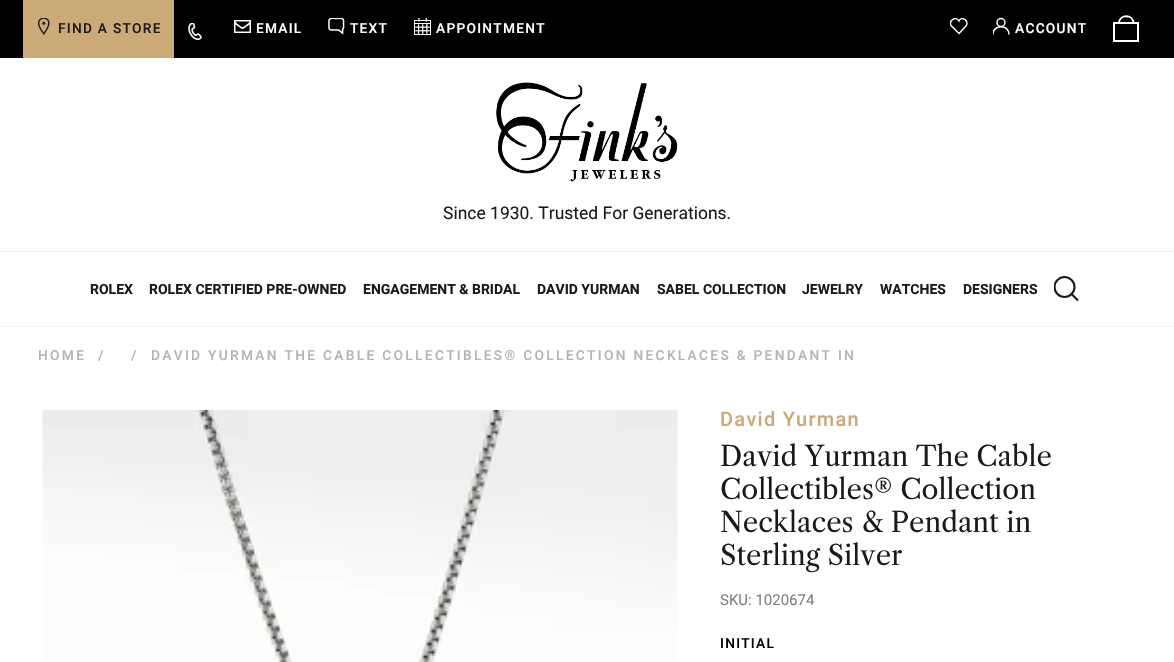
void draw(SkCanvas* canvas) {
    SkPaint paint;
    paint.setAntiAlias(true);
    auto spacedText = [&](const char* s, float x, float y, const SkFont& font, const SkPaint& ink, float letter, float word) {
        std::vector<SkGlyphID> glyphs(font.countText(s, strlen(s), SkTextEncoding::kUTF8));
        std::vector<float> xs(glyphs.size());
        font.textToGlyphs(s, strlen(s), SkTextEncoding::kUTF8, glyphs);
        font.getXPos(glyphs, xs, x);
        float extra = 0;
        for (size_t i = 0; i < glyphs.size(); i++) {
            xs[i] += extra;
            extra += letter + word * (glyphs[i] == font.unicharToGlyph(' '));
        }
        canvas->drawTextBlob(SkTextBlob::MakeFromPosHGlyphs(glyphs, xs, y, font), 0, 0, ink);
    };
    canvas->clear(0xFFFFFFFF);
    paint.setColor(0xFF000000);
    canvas->drawRect(SkRect::MakeXYWH(0, 0, 1174, 58), paint);
    paint.setColor(0xFFCBAA78);
    canvas->drawRect(SkRect::MakeXYWH(23, 0, 151, 58), paint);
    canvas->drawImageRect(SkImages::DeferredFromEncodedData(SkData::MakeFromFileName("img1.png")), SkRect::MakeXYWH(38, 18, 12, 17), SkSamplingOptions());
    SkFont font1(fontMgr->matchFamilyStyle("Roboto", SkFontStyle(500, SkFontStyle::kNormal_Width, SkFontStyle::kUpright_Slant)), 13.75f);
    font1.setSubpixel(true);
    paint.setColor(0xFF1A1A1A);
    spacedText("FIND A STORE", 58, 33, font1, paint, 1.25f, 0);
    canvas->drawImageRect(SkImages::DeferredFromEncodedData(SkData::MakeFromFileName("img2.png")), SkRect::MakeXYWH(188, 23, 14, 17), SkSamplingOptions());
    paint.setStyle(SkPaint::kStroke_Style);
    paint.setStrokeWidth(1.5f);
    paint.setColor(0xFFFFFFFF);
    canvas->drawRect(SkRect::MakeXYWH(234.75f, 20.75f, 15.5f, 11.5f), paint);
    paint.setStrokeWidth(1.6f);
    canvas->drawPath(SkPathBuilder().moveTo(234.5f, 22.5f).cubicTo(244, 30, 241, 30, 250.5f, 22.5f).detach(), paint);
    paint.setStyle(SkPaint::kFill_Style);
    spacedText("EMAIL", 256, 33, font1, paint, 1.25f, 0);
    canvas->drawImageRect(SkImages::DeferredFromEncodedData(SkData::MakeFromFileName("img3.png")), SkRect::MakeXYWH(328, 18, 17, 17), SkSamplingOptions());
    spacedText("TEXT", 350, 33, font1, paint, 1.25f, 0);
    canvas->drawImageRect(SkImages::DeferredFromEncodedData(SkData::MakeFromFileName("img4.png")), SkRect::MakeXYWH(414, 18, 17, 17), SkSamplingOptions());
    spacedText("APPOINTMENT", 436, 33, font1, paint, 1.25f, 0);
    canvas->save();
    canvas->clipRect(SkRect::MakeXYWH(950, 18, 18, 17));
    paint.setStyle(SkPaint::kStroke_Style);
    paint.setStrokeWidth(1.4f);
    canvas->drawPath(SkPathBuilder().moveTo(965.5f, 26.5f).lineTo(959, 33.5f).lineTo(951, 25.5f).cubicTo(948.5f, 20.5f, 956, 15.5f, 959, 21).cubicTo(961.5f, 15, 970.5f, 21.5f, 965.5f, 26.5f).close().detach(), paint);
    canvas->restore();
    paint.setStrokeWidth(1.5f);
    canvas->drawCircle(1001, 22.5f, 4, paint);
    canvas->save();
    canvas->clipRect(SkRect::MakeXYWH(993, 18, 17, 17));
    canvas->drawPath(SkPathBuilder().moveTo(1009, 34.5f).cubicTo(1009, 24, 993, 24, 993, 34.5f).detach(), paint);
    canvas->restore();
    paint.setStyle(SkPaint::kFill_Style);
    spacedText("ACCOUNT", 1015, 33, font1, paint, 1.25f, 0);
    paint.setStyle(SkPaint::kStroke_Style);
    paint.setStrokeWidth(1.9f);
    canvas->drawPath(SkPathBuilder().moveTo(1133.5f, 23).cubicTo(1133, 14, 1119.5f, 14, 1119, 23).detach(), paint);
    paint.setStrokeWidth(2);
    canvas->drawRect(SkRect::MakeXYWH(1114, 23, 24, 18), paint);
    paint.setStyle(SkPaint::kFill_Style);
    paint.setColor(0xFFF2F2F2);
    canvas->drawRect(SkRect::MakeXYWH(0, 251, 1174, 1), paint);
    canvas->drawImageRect(SkImages::DeferredFromEncodedData(SkData::MakeFromFileName("img5.png")), SkRect::MakeXYWH(496, 82, 182, 100), SkSamplingOptions());
    SkFont font2(fontMgr->matchFamilyStyle("Roboto", SkFontStyle::Normal()), 17.5f);
    font2.setSubpixel(true);
    paint.setColor(0xFF1A1A1A);
    canvas->drawString("Since 1930. Trusted For Generations.", 443, 219, font2, paint);
    paint.setColor(0xFFF2F2F2);
    canvas->drawRect(SkRect::MakeXYWH(0, 326, 1174, 1), paint);
    SkFont font3(fontMgr->matchFamilyStyle("Roboto", SkFontStyle::Bold()), 14);
    font3.setSubpixel(true);
    paint.setColor(0xFF1A1A1A);
    canvas->drawString("ROLEX", 90, 294, font3, paint);
    canvas->drawString("ROLEX CERTIFIED PRE-OWNED", 149, 294, font3, paint);
    canvas->drawString("ENGAGEMENT & BRIDAL", 363, 294, font3, paint);
    canvas->drawString("DAVID YURMAN", 537, 294, font3, paint);
    canvas->drawString("SABEL COLLECTION", 657, 294, font3, paint);
    canvas->drawString("JEWELRY", 802, 294, font3, paint);
    canvas->drawString("WATCHES", 880, 294, font3, paint);
    canvas->drawString("DESIGNERS", 963, 294, font3, paint);
    canvas->save();
    canvas->clipRect(SkRect::MakeXYWH(1054, 276, 25, 25));
    paint.setStyle(SkPaint::kStroke_Style);
    paint.setStrokeWidth(2.1f);
    canvas->drawCircle(1064.5f, 287, 10, paint);
    canvas->restore();
    canvas->drawPath(SkPathBuilder().moveTo(1071, 293.5f).lineTo(1078, 300.5f).detach(), paint);
    paint.setStyle(SkPaint::kFill_Style);
    paint.setColor(0xFFB4B4B4);
    spacedText("HOME", 38, 360, font1, paint, 2.3f, 0);
    spacedText("/", 98, 360, font1, paint, 2.3f, 0);
    spacedText("/", 131, 360, font1, paint, 2.3f, 0);
    spacedText("DAVID YURMAN THE CABLE COLLECTIBLES® COLLECTION NECKLACES & PENDANT IN", 151, 360, font1, paint, 2.3f, 0);
    canvas->drawImageRect(SkImages::DeferredFromEncodedData(SkData::MakeFromFileName("img6.png")), SkRect::MakeXYWH(42, 410, 636, 252), SkSamplingOptions());
    SkFont font4(fontMgr->matchFamilyStyle("Roboto", SkFontStyle(500, SkFontStyle::kNormal_Width, SkFontStyle::kUpright_Slant)), 20);
    font4.setSubpixel(true);
    paint.setColor(0xFFCBAA78);
    spacedText("David Yurman", 720, 426, font4, paint, 1.25f, 0);
    SkFont font5(fontMgr->matchFamilyStyle("Libre Caslon Text", SkFontStyle::Normal()), 27.5f);
    font5.setSubpixel(true);
    paint.setColor(0xFF1A1A1A);
    canvas->drawString("David Yurman The Cable", 720, 466, font5, paint);
    canvas->drawString("Collectibles® Collection", 720, 499, font5, paint);
    canvas->drawString("Necklaces & Pendant in", 720, 532, font5, paint);
    canvas->drawString("Sterling Silver", 720, 565, font5, paint);
    SkFont font6(fontMgr->matchFamilyStyle("Roboto", SkFontStyle::Normal()), 15);
    font6.setSubpixel(true);
    paint.setColor(0xFF808084);
    canvas->drawString("SKU: 1020674", 720, 605, font6, paint);
    paint.setColor(0xFF000000);
    spacedText("INITIAL", 720, 648, font1, paint, 1.25f, 0);
}
